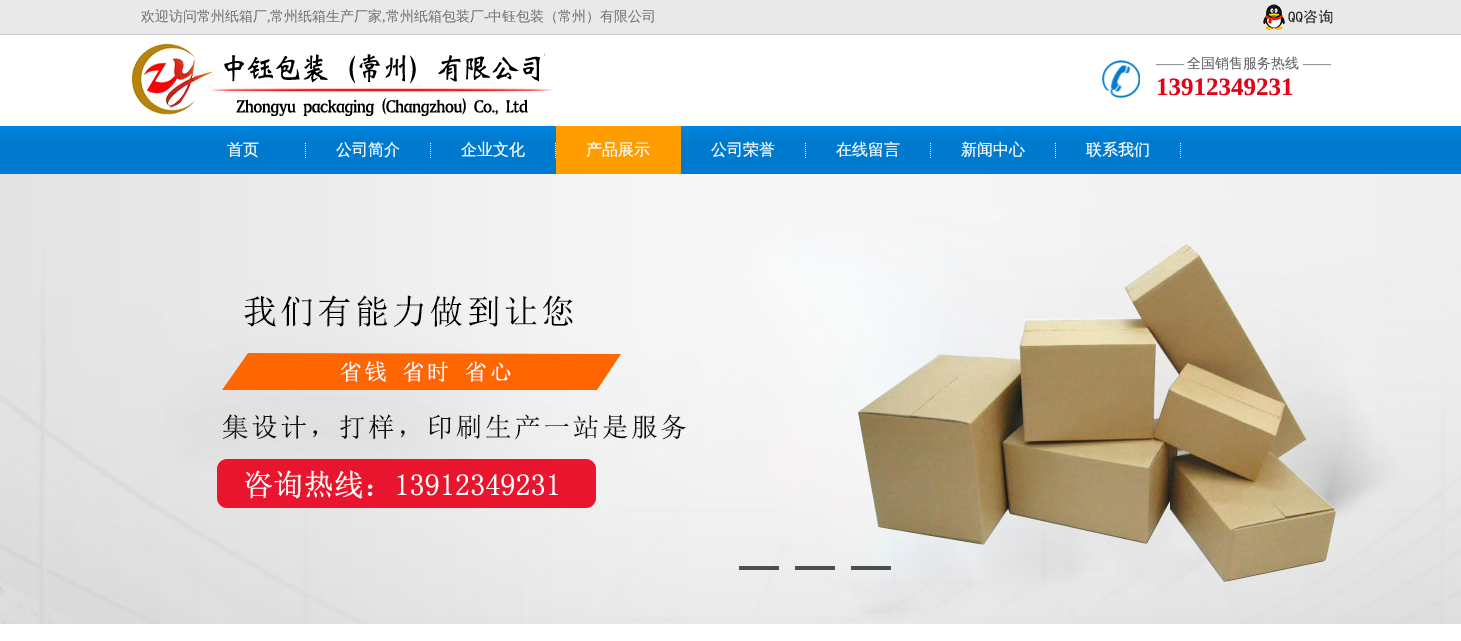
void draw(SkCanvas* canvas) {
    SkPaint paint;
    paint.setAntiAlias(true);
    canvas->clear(0xFFFFFFFF);
    paint.setColor(0xFFE9E9E9);
    canvas->drawRect(SkRect::MakeXYWH(0, 0, 1461, 34), paint);
    SkFont font1(fontMgr->matchFamilyStyle("WenQuanYi Zen Hei", SkFontStyle(500, SkFontStyle::kNormal_Width, SkFontStyle::kUpright_Slant)), 14);
    font1.setSubpixel(true);
    paint.setColor(0xFF777777);
    canvas->drawString("欢迎访问常州纸箱厂", 141, 21, font1, paint);
    canvas->drawString("常州纸箱生产厂家", 270, 21, font1, paint);
    canvas->drawString("常州纸箱包装厂", 386, 21, font1, paint);
    SkFont font2(fontMgr->matchFamilyStyle("Liberation Serif", SkFontStyle::Normal()), 14);
    font2.setSubpixel(true);
    canvas->drawString("-", 484, 21, font2, paint);
    canvas->drawString("中钰包装（常州）有限公司", 488, 21, font1, paint);
    canvas->drawString(",", 267, 21, font2, paint);
    canvas->drawString(",", 382, 21, font2, paint);
    canvas->drawImageRect(SkImages::DeferredFromEncodedData(SkData::MakeFromFileName("img1.png")), SkRect::MakeXYWH(1263, 4, 70, 26), SkSamplingOptions());
    paint.setColor(0xFFCCCCCC);
    canvas->drawRect(SkRect::MakeXYWH(0, 34, 1461, 1), paint);
    canvas->drawImageRect(SkImages::DeferredFromEncodedData(SkData::MakeFromFileName("img2.png")), SkRect::MakeXYWH(131, 43, 422, 73), SkSamplingOptions());
    canvas->drawImageRect(SkImages::DeferredFromEncodedData(SkData::MakeFromFileName("img3.png")), SkRect::MakeXYWH(1102, 60, 38, 38), SkSamplingOptions());
    paint.setColor(0xFF666666);
    canvas->drawString("——", 1156, 68, font2, paint);
    canvas->drawString("全国销售服务热线", 1187, 68, font1, paint);
    canvas->drawString("——", 1303, 68, font2, paint);
    SkFont font3(fontMgr->matchFamilyStyle("Liberation Serif", SkFontStyle::Bold()), 25);
    font3.setSubpixel(true);
    paint.setColor(0xFFE30217);
    canvas->drawString("13912349231", 1156, 95, font3, paint);
    canvas->drawImageRect(SkImages::DeferredFromEncodedData(SkData::MakeFromFileName("img4.png")), SkRect::MakeXYWH(0, 126, 1461, 48), SkSamplingOptions());
    canvas->drawImageRect(SkImages::DeferredFromEncodedData(SkData::MakeFromFileName("img5.png")), SkRect::MakeXYWH(305, 143, 1, 15), SkSamplingOptions());
    SkFont font4(fontMgr->matchFamilyStyle("WenQuanYi Zen Hei", SkFontStyle(500, SkFontStyle::kNormal_Width, SkFontStyle::kUpright_Slant)), 16);
    font4.setSubpixel(true);
    paint.setColor(0xFFFFFFFF);
    canvas->drawString("首页", 227, 155, font4, paint);
    canvas->drawImageRect(SkImages::DeferredFromEncodedData(SkData::MakeFromFileName("img5.png")), SkRect::MakeXYWH(430, 143, 1, 15), SkSamplingOptions());
    canvas->drawString("公司简介", 336, 155, font4, paint);
    canvas->drawImageRect(SkImages::DeferredFromEncodedData(SkData::MakeFromFileName("img5.png")), SkRect::MakeXYWH(555, 143, 1, 15), SkSamplingOptions());
    canvas->drawString("企业文化", 461, 155, font4, paint);
    paint.setColor(0xFFFF9C00);
    canvas->drawRect(SkRect::MakeXYWH(556, 126, 125, 48), paint);
    paint.setColor(0xFFFFFFFF);
    canvas->drawString("产品展示", 586, 155, font4, paint);
    canvas->drawImageRect(SkImages::DeferredFromEncodedData(SkData::MakeFromFileName("img5.png")), SkRect::MakeXYWH(805, 143, 1, 15), SkSamplingOptions());
    canvas->drawString("公司荣誉", 711, 155, font4, paint);
    canvas->drawImageRect(SkImages::DeferredFromEncodedData(SkData::MakeFromFileName("img5.png")), SkRect::MakeXYWH(930, 143, 1, 15), SkSamplingOptions());
    canvas->drawString("在线留言", 836, 155, font4, paint);
    canvas->drawImageRect(SkImages::DeferredFromEncodedData(SkData::MakeFromFileName("img5.png")), SkRect::MakeXYWH(1055, 143, 1, 15), SkSamplingOptions());
    canvas->drawString("新闻中心", 961, 155, font4, paint);
    canvas->drawImageRect(SkImages::DeferredFromEncodedData(SkData::MakeFromFileName("img5.png")), SkRect::MakeXYWH(1180, 143, 1, 15), SkSamplingOptions());
    canvas->drawString("联系我们", 1086, 155, font4, paint);
    canvas->drawImageRect(SkImages::DeferredFromEncodedData(SkData::MakeFromFileName("img6.png")), SkRect::MakeXYWH(0, 174, 1461, 450), SkSamplingOptions());
    paint.setColor(0xFF4F4C4C);
    canvas->drawRect(SkRect::MakeXYWH(739, 566, 40, 4), paint);
    canvas->drawRect(SkRect::MakeXYWH(795, 566, 40, 4), paint);
    canvas->drawRect(SkRect::MakeXYWH(851, 566, 40, 4), paint);
}
